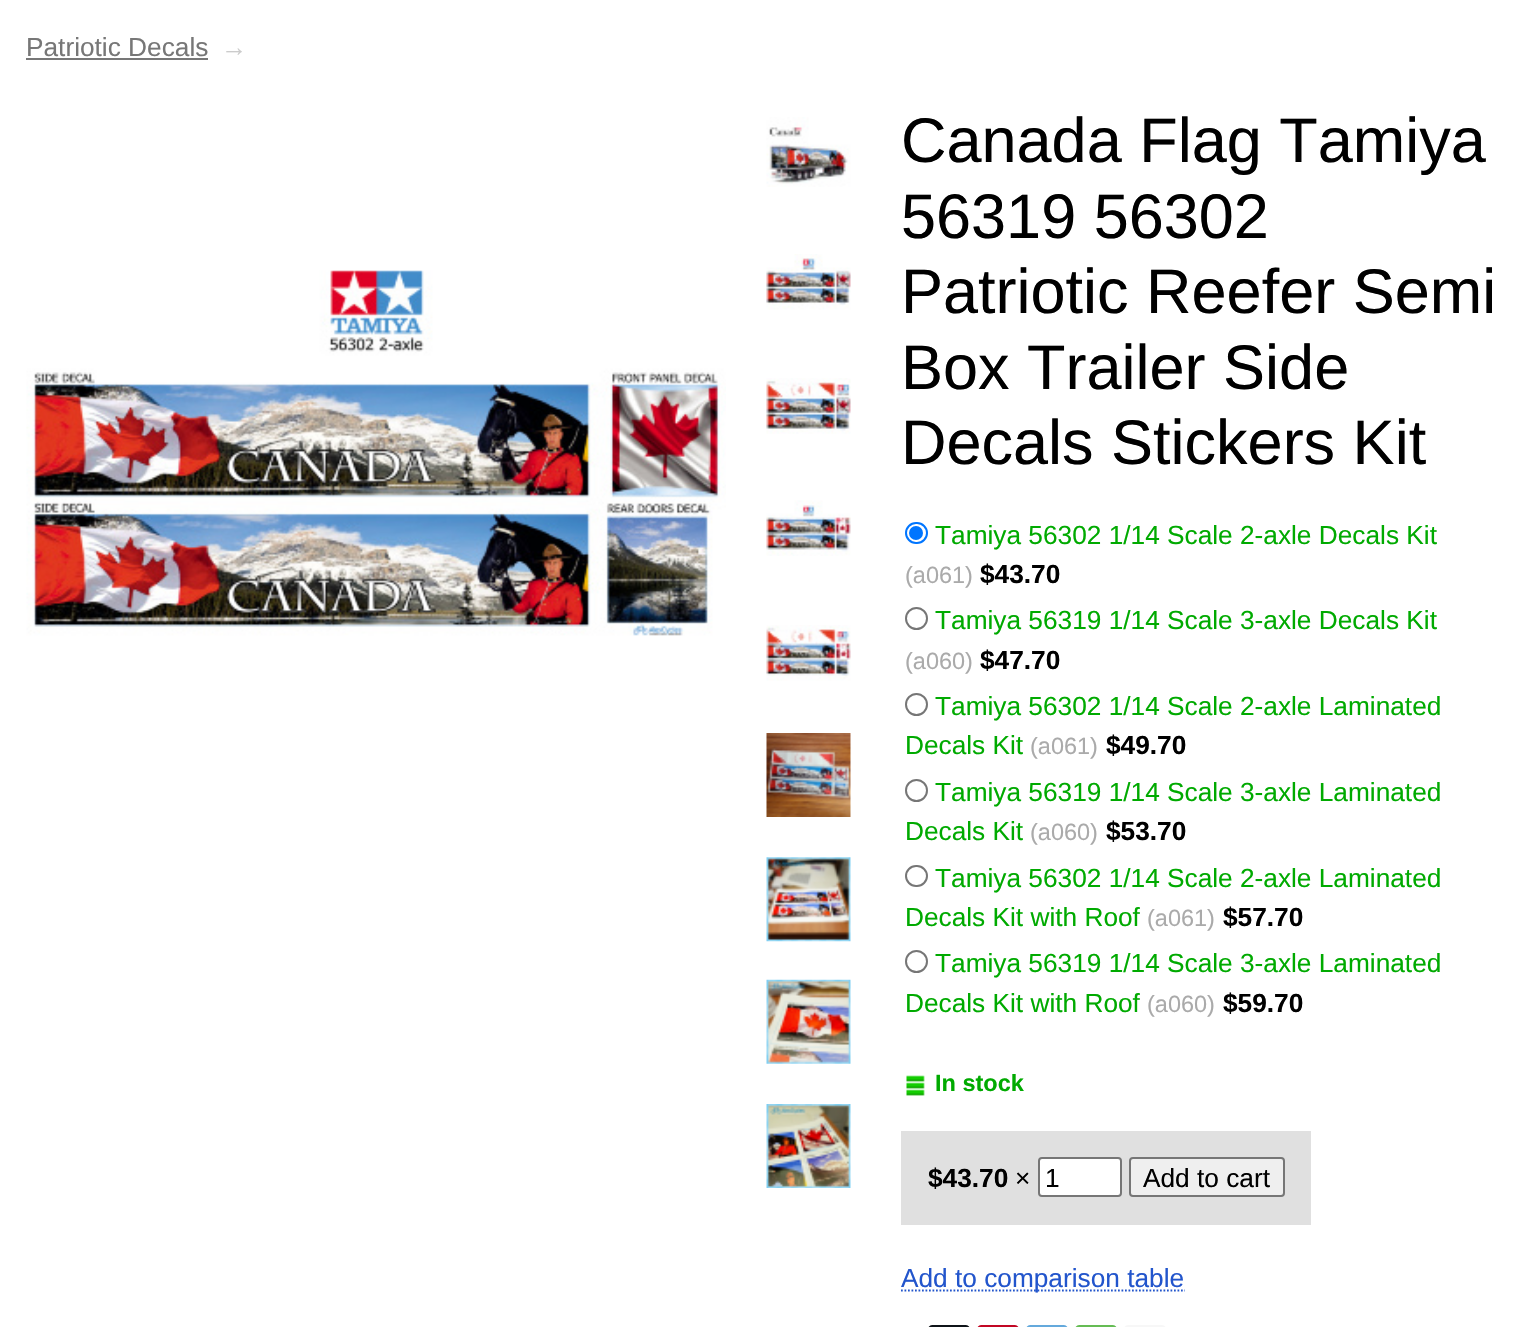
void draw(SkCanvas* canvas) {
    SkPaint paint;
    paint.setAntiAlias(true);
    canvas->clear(0xFFFFFFFF);
    SkFont font1(fontMgr->matchFamilyStyle("Liberation Sans", SkFontStyle::Normal()), 26.25f);
    font1.setSubpixel(true);
    paint.setColor(0xFF777777);
    canvas->drawString("Patriotic Decals", 26, 56, font1, paint);
    canvas->drawRect(SkRect::MakeXYWH(26, 58, 182, 2), paint);
    paint.setColor(0xFFCCCCCC);
    canvas->drawString("→", 221, 56, font1, paint);
    canvas->drawImageRect(SkImages::DeferredFromEncodedData(SkData::MakeFromFileName("img1.png")), SkRect::MakeXYWH(26, 270, 700, 366), SkSamplingOptions());
    canvas->drawImageRect(SkImages::DeferredFromEncodedData(SkData::MakeFromFileName("img2.png")), SkRect::MakeXYWH(766, 117, 85, 70), SkSamplingOptions());
    canvas->drawImageRect(SkImages::DeferredFromEncodedData(SkData::MakeFromFileName("img3.png")), SkRect::MakeXYWH(766, 254, 85, 56), SkSamplingOptions());
    canvas->drawImageRect(SkImages::DeferredFromEncodedData(SkData::MakeFromFileName("img4.png")), SkRect::MakeXYWH(766, 378, 85, 56), SkSamplingOptions());
    canvas->drawImageRect(SkImages::DeferredFromEncodedData(SkData::MakeFromFileName("img5.png")), SkRect::MakeXYWH(766, 500, 85, 56), SkSamplingOptions());
    canvas->drawImageRect(SkImages::DeferredFromEncodedData(SkData::MakeFromFileName("img6.png")), SkRect::MakeXYWH(766, 625, 85, 56), SkSamplingOptions());
    canvas->drawImageRect(SkImages::DeferredFromEncodedData(SkData::MakeFromFileName("img7.png")), SkRect::MakeXYWH(766, 733, 85, 84), SkSamplingOptions());
    canvas->drawImageRect(SkImages::DeferredFromEncodedData(SkData::MakeFromFileName("img8.png")), SkRect::MakeXYWH(766, 857, 85, 85), SkSamplingOptions());
    canvas->drawImageRect(SkImages::DeferredFromEncodedData(SkData::MakeFromFileName("img9.png")), SkRect::MakeXYWH(766, 979, 85, 85), SkSamplingOptions());
    canvas->drawImageRect(SkImages::DeferredFromEncodedData(SkData::MakeFromFileName("img10.png")), SkRect::MakeXYWH(766, 1104, 85, 84), SkSamplingOptions());
    SkFont font2(fontMgr->matchFamilyStyle("Liberation Sans", SkFontStyle::Normal()), 63);
    font2.setSubpixel(true);
    paint.setColor(0xFF000000);
    canvas->drawString("Canada Flag Tamiya", 901, 162, font2, paint);
    canvas->drawString("56319 56302", 901, 238, font2, paint);
    canvas->drawString("Patriotic Reefer Semi", 901, 313, font2, paint);
    canvas->drawString("Box Trailer Side", 901, 389, font2, paint);
    canvas->drawString("Decals Stickers Kit", 901, 464, font2, paint);
    paint.setStyle(SkPaint::kStroke_Style);
    paint.setStrokeWidth(2);
    paint.setColor(0xFF0075FF);
    canvas->drawRoundRect(SkRect::MakeXYWH(906, 523, 21, 20), 10, 10, paint);
    paint.setStyle(SkPaint::kFill_Style);
    canvas->drawCircle(916, 533, 7, paint);
    paint.setColor(0xFF00AA00);
    canvas->drawString("Tamiya 56302 1/14 Scale 2-axle Decals Kit", 935, 544, font1, paint);
    SkFont font3(fontMgr->matchFamilyStyle("Liberation Sans", SkFontStyle::Normal()), 23.5f);
    font3.setSubpixel(true);
    paint.setColor(0xFFAAAAAA);
    canvas->drawString("(a061)", 905, 583, font3, paint);
    SkFont font4(fontMgr->matchFamilyStyle("Liberation Sans", SkFontStyle::Bold()), 26.25f);
    font4.setSubpixel(true);
    paint.setColor(0xFF000000);
    canvas->drawString("$43.70", 980, 583, font4, paint);
    paint.setStyle(SkPaint::kStroke_Style);
    paint.setColor(0xFF767676);
    canvas->drawCircle(916.5f, 618.5f, 10.5f, paint);
    paint.setStyle(SkPaint::kFill_Style);
    paint.setColor(0xFF00AA00);
    canvas->drawString("Tamiya 56319 1/14 Scale 3-axle Decals Kit", 935, 629, font1, paint);
    paint.setColor(0xFFAAAAAA);
    canvas->drawString("(a060)", 905, 669, font3, paint);
    paint.setColor(0xFF000000);
    canvas->drawString("$47.70", 980, 669, font4, paint);
    paint.setStyle(SkPaint::kStroke_Style);
    paint.setColor(0xFF767676);
    canvas->drawCircle(916.5f, 704.5f, 10.5f, paint);
    paint.setStyle(SkPaint::kFill_Style);
    paint.setColor(0xFF00AA00);
    canvas->drawString("Tamiya 56302 1/14 Scale 2-axle Laminated", 935, 715, font1, paint);
    canvas->drawString("Decals Kit", 905, 754, font1, paint);
    paint.setColor(0xFFAAAAAA);
    canvas->drawString("(a061)", 1030, 754, font3, paint);
    paint.setColor(0xFF000000);
    canvas->drawString("$49.70", 1106, 754, font4, paint);
    paint.setStyle(SkPaint::kStroke_Style);
    paint.setColor(0xFF767676);
    canvas->drawCircle(916.5f, 790.5f, 10.5f, paint);
    paint.setStyle(SkPaint::kFill_Style);
    paint.setColor(0xFF00AA00);
    canvas->drawString("Tamiya 56319 1/14 Scale 3-axle Laminated", 935, 801, font1, paint);
    canvas->drawString("Decals Kit", 905, 840, font1, paint);
    paint.setColor(0xFFAAAAAA);
    canvas->drawString("(a060)", 1030, 840, font3, paint);
    paint.setColor(0xFF000000);
    canvas->drawString("$53.70", 1106, 840, font4, paint);
    paint.setStyle(SkPaint::kStroke_Style);
    paint.setColor(0xFF767676);
    canvas->drawRoundRect(SkRect::MakeXYWH(906, 866, 21, 20), 10, 10, paint);
    paint.setStyle(SkPaint::kFill_Style);
    paint.setColor(0xFF00AA00);
    canvas->drawString("Tamiya 56302 1/14 Scale 2-axle Laminated", 935, 887, font1, paint);
    canvas->drawString("Decals Kit with Roof", 905, 926, font1, paint);
    paint.setColor(0xFFAAAAAA);
    canvas->drawString("(a061)", 1147, 926, font3, paint);
    paint.setColor(0xFF000000);
    canvas->drawString("$57.70", 1223, 926, font4, paint);
    paint.setStyle(SkPaint::kStroke_Style);
    paint.setColor(0xFF767676);
    canvas->drawCircle(916.5f, 961.5f, 10.5f, paint);
    paint.setStyle(SkPaint::kFill_Style);
    paint.setColor(0xFF00AA00);
    canvas->drawString("Tamiya 56319 1/14 Scale 3-axle Laminated", 935, 972, font1, paint);
    canvas->drawString("Decals Kit with Roof", 905, 1012, font1, paint);
    paint.setColor(0xFFAAAAAA);
    canvas->drawString("(a060)", 1147, 1012, font3, paint);
    paint.setColor(0xFF000000);
    canvas->drawString("$59.70", 1223, 1012, font4, paint);
    canvas->drawImageRect(SkImages::DeferredFromEncodedData(SkData::MakeFromFileName("img11.png")), SkRect::MakeXYWH(906, 1075, 19, 21), SkSamplingOptions());
    SkFont font5(fontMgr->matchFamilyStyle("Liberation Sans", SkFontStyle::Bold()), 23.5f);
    font5.setSubpixel(true);
    paint.setColor(0xFF00AA00);
    canvas->drawString("In stock", 935, 1091, font5, paint);
    paint.setColor(0xFFE0E0E0);
    canvas->drawRect(SkRect::MakeXYWH(901, 1131, 410, 94), paint);
    paint.setColor(0xFF000000);
    canvas->drawString("$43.70", 928, 1187, font4, paint);
    canvas->drawString("×", 1015, 1187, font1, paint);
    paint.setColor(0xFFFFFFFF);
    canvas->drawRoundRect(SkRect::MakeXYWH(1039, 1158, 82, 38), 3, 3, paint);
    paint.setStyle(SkPaint::kStroke_Style);
    paint.setColor(0xFF767676);
    canvas->drawRoundRect(SkRect::MakeXYWH(1039, 1158, 82, 38), 3, 3, paint);
    paint.setStyle(SkPaint::kFill_Style);
    paint.setColor(0xFF000000);
    canvas->drawString("1", 1045, 1187, font1, paint);
    paint.setColor(0xFFEFEFEF);
    canvas->drawRoundRect(SkRect::MakeXYWH(1130, 1158, 154, 38), 3, 3, paint);
    paint.setStyle(SkPaint::kStroke_Style);
    paint.setColor(0xFF767676);
    canvas->drawRoundRect(SkRect::MakeXYWH(1130, 1158, 154, 38), 3, 3, paint);
    paint.setStyle(SkPaint::kFill_Style);
    paint.setColor(0xFF000000);
    canvas->drawString("Add to cart", 1143, 1187, font1, paint);
    paint.setStyle(SkPaint::kStroke_Style);
    paint.setStrokeWidth(1.8f);
    paint.setColor(0xFF2255CC);
    paint.setPathEffect(SkDashPathEffect::Make({{1.75f, 1.75f}}, 0));
    canvas->drawPath(SkPathBuilder().moveTo(901, 1290.5f).lineTo(1185, 1290.5f).detach(), paint);
    paint.setPathEffect(nullptr);
    paint.setStyle(SkPaint::kFill_Style);
    canvas->drawString("Add to comparison table", 901, 1287, font1, paint);
    paint.setColor(0xFF0F1419);
    canvas->drawRoundRect(SkRect::MakeXYWH(928, 1325, 42, 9), 7, 7, paint);
    paint.setColor(0xFFC20724);
    canvas->drawRoundRect(SkRect::MakeXYWH(977, 1325, 42, 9), 7, 7, paint);
    paint.setColor(0xFF64A9DC);
    canvas->drawRoundRect(SkRect::MakeXYWH(1026, 1325, 42, 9), 7, 7, paint);
    paint.setColor(0xFF65BC54);
    canvas->drawRoundRect(SkRect::MakeXYWH(1075, 1325, 42, 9), 7, 7, paint);
    paint.setColor(0xFFF7F7F7);
    canvas->drawRoundRect(SkRect::MakeXYWH(1124, 1325, 42, 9), 7, 7, paint);
}
